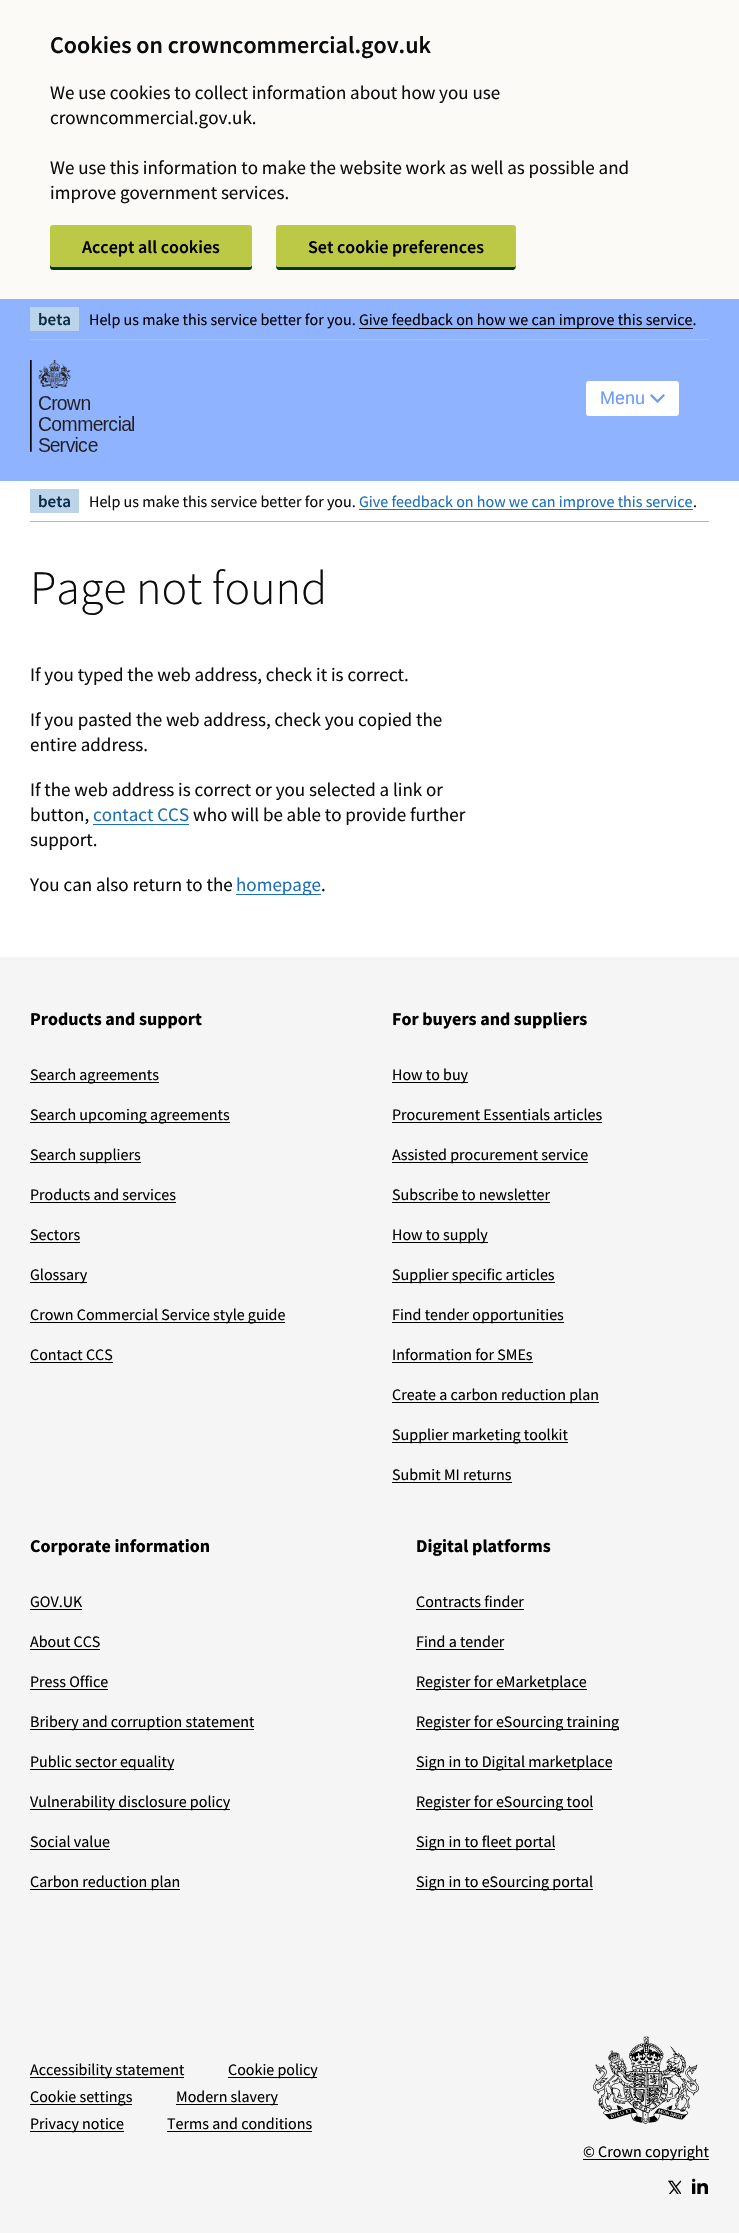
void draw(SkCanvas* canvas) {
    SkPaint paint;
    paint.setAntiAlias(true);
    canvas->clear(0xFFFFFFFF);
    paint.setColor(0xFFFCFAF7);
    canvas->drawRect(SkRect::MakeXYWH(0, 0, 739, 299), paint);
    SkFont font1(fontMgr->matchFamilyStyle("Source Sans Pro", SkFontStyle(600, SkFontStyle::kNormal_Width, SkFontStyle::kUpright_Slant)), 24);
    font1.setSubpixel(true);
    paint.setColor(0xFF0B0C0C);
    canvas->drawString("Cookies on crowncommercial.gov.uk", 50, 53, font1, paint);
    SkFont font2(fontMgr->matchFamilyStyle("Source Sans Pro", SkFontStyle::Normal()), 19);
    font2.setSubpixel(true);
    canvas->drawString("We use cookies to collect information about how you use", 50, 99, font2, paint);
    canvas->drawString("crowncommercial.gov.uk.", 50, 124, font2, paint);
    canvas->drawString("We use this information to make the website work as well as possible and", 50, 174, font2, paint);
    canvas->drawString("improve government services.", 50, 199, font2, paint);
    paint.setColor(0xFF003618);
    canvas->drawPath(SkPathBuilder().moveTo(50, 264).lineTo(50, 267).cubicTo(50, 269, 51, 270, 53, 270).lineTo(249, 270).cubicTo(251, 270, 252, 269, 252, 267).lineTo(252, 264).cubicTo(252, 266, 251, 267, 249, 267).lineTo(52, 267).lineTo(51, 266).close().detach(), paint);
    paint.setColor(0xFFBBC946);
    canvas->drawRoundRect(SkRect::MakeXYWH(50, 225, 202, 42), 3, 3, paint);
    SkFont font3(fontMgr->matchFamilyStyle("Source Sans Pro", SkFontStyle(600, SkFontStyle::kNormal_Width, SkFontStyle::kUpright_Slant)), 18);
    font3.setSubpixel(true);
    paint.setColor(0xFF000000);
    canvas->drawString("Accept all cookies", 82, 253, font3, paint);
    paint.setColor(0xFF003618);
    canvas->drawPath(SkPathBuilder().moveTo(276, 264).cubicTo(276, 266, 276, 270, 279, 270).lineTo(513, 270).cubicTo(516, 270, 516, 266, 516, 264).cubicTo(516, 266, 515, 267, 513, 267).lineTo(279, 267).cubicTo(277, 267, 276, 266, 276, 264).close().detach(), paint);
    paint.setColor(0xFFBBC946);
    canvas->drawRoundRect(SkRect::MakeXYWH(276, 225, 240, 42), 3, 3, paint);
    paint.setColor(0xFF000000);
    canvas->drawString("Set cookie preferences", 308, 253, font3, paint);
    paint.setColor(0xFF8FB3FF);
    canvas->drawRect(SkRect::MakeXYWH(0, 299, 739, 182), paint);
    paint.setColor(0xFFA5C2FF);
    canvas->drawRect(SkRect::MakeXYWH(30, 339, 679, 1), paint);
    paint.setColor(0xFFBBD4EA);
    canvas->drawRect(SkRect::MakeXYWH(30, 307, 49, 24), paint);
    SkFont font4(fontMgr->matchFamilyStyle("Source Sans Pro", SkFontStyle(600, SkFontStyle::kNormal_Width, SkFontStyle::kUpright_Slant)), 17);
    font4.setSubpixel(true);
    paint.setColor(0xFF0C2D4A);
    canvas->drawString("beta", 38, 325, font4, paint);
    SkFont font5(fontMgr->matchFamilyStyle("Source Sans Pro", SkFontStyle::Normal()), 16);
    font5.setSubpixel(true);
    paint.setColor(0xFF000000);
    canvas->drawString("Help us make this service better for you.", 89, 325, font5, paint);
    canvas->drawRect(SkRect::MakeXYWH(359, 328, 334, 1), paint);
    canvas->drawString("Give feedback on how we can improve this service.", 359, 325, font5, paint);
    canvas->drawImageRect(SkImages::DeferredFromEncodedData(SkData::MakeFromFileName("img1.png")), SkRect::MakeXYWH(30, 360, 104, 92), SkSamplingOptions());
    paint.setColor(0xFFFFFFFF);
    canvas->drawRoundRect(SkRect::MakeXYWH(586, 381, 93, 35), 3, 3, paint);
    SkFont font6(fontMgr->matchFamilyStyle("Liberation Sans", SkFontStyle::Normal()), 18);
    font6.setSubpixel(true);
    paint.setColor(0xFF6A99FF);
    canvas->drawString("Menu", 600, 404, font6, paint);
    canvas->drawImageRect(SkImages::DeferredFromEncodedData(SkData::MakeFromFileName("img2.png")), SkRect::MakeXYWH(650, 394, 15, 9), SkSamplingOptions());
    paint.setColor(0xFFB1B4B6);
    canvas->drawRect(SkRect::MakeXYWH(30, 521, 679, 1), paint);
    paint.setColor(0xFFBBD4EA);
    canvas->drawRect(SkRect::MakeXYWH(30, 489, 49, 24), paint);
    paint.setColor(0xFF0C2D4A);
    canvas->drawString("beta", 38, 507, font4, paint);
    paint.setColor(0xFF0B0C0C);
    canvas->drawString("Help us make this service better for you.", 89, 507, font5, paint);
    paint.setColor(0xFF1D70B8);
    canvas->drawRect(SkRect::MakeXYWH(359, 509, 334, 1), paint);
    canvas->drawString("Give feedback on how we can improve this service", 359, 507, font5, paint);
    paint.setColor(0xFF0B0C0C);
    canvas->drawString(".", 693, 507, font5, paint);
    SkFont font7(fontMgr->matchFamilyStyle("Source Sans Pro", SkFontStyle(300, SkFontStyle::kNormal_Width, SkFontStyle::kUpright_Slant)), 48);
    font7.setSubpixel(true);
    canvas->drawString("Page not found", 30, 604, font7, paint);
    canvas->drawString("If you typed the web address, check it is correct.", 30, 681, font2, paint);
    canvas->drawString("If you pasted the web address, check you copied the", 30, 726, font2, paint);
    canvas->drawString("entire address.", 30, 751, font2, paint);
    canvas->drawString("If the web address is correct or you selected a link or", 30, 796, font2, paint);
    canvas->drawString("button,", 30, 821, font2, paint);
    paint.setColor(0xFF1D70B8);
    canvas->drawString("contact CCS", 93, 821, font2, paint);
    canvas->drawRect(SkRect::MakeXYWH(93, 824, 96, 1), paint);
    paint.setColor(0xFF0B0C0C);
    canvas->drawString("who will be able to provide further", 193, 821, font2, paint);
    canvas->drawString("support.", 30, 846, font2, paint);
    canvas->drawString("You can also return to the", 30, 891, font2, paint);
    paint.setColor(0xFF1D70B8);
    canvas->drawRect(SkRect::MakeXYWH(236, 894, 85, 1), paint);
    canvas->drawString("homepage", 236, 891, font2, paint);
    paint.setColor(0xFF0B0C0C);
    canvas->drawString(".", 321, 891, font2, paint);
    paint.setColor(0xFFF5F5F5);
    canvas->drawRect(SkRect::MakeXYWH(0, 957, 739, 1276), paint);
    SkFont font8(fontMgr->matchFamilyStyle("Source Sans Pro", SkFontStyle::Bold()), 18);
    font8.setSubpixel(true);
    paint.setColor(0xFF000000);
    canvas->drawString("Products and support", 30, 1025, font8, paint);
    canvas->drawRect(SkRect::MakeXYWH(30, 1082, 129, 1), paint);
    canvas->drawString("Search agreements", 30, 1080, font5, paint);
    canvas->drawRect(SkRect::MakeXYWH(30, 1122, 200, 1), paint);
    canvas->drawString("Search upcoming agreements", 30, 1120, font5, paint);
    canvas->drawRect(SkRect::MakeXYWH(30, 1162, 111, 1), paint);
    canvas->drawString("Search suppliers", 30, 1160, font5, paint);
    canvas->drawString("Products and services", 30, 1200, font5, paint);
    canvas->drawRect(SkRect::MakeXYWH(30, 1202, 146, 1), paint);
    canvas->drawString("Sectors", 30, 1240, font5, paint);
    canvas->drawRect(SkRect::MakeXYWH(30, 1242, 50, 1), paint);
    canvas->drawRect(SkRect::MakeXYWH(30, 1282, 57, 1), paint);
    canvas->drawString("Glossary", 30, 1280, font5, paint);
    canvas->drawRect(SkRect::MakeXYWH(30, 1322, 255, 1), paint);
    canvas->drawString("Crown Commercial Service style guide", 30, 1320, font5, paint);
    canvas->drawString("Contact CCS", 30, 1360, font5, paint);
    canvas->drawRect(SkRect::MakeXYWH(30, 1362, 83, 1), paint);
    canvas->drawString("For buyers and suppliers", 392, 1025, font8, paint);
    canvas->drawRect(SkRect::MakeXYWH(392, 1082, 76, 1), paint);
    canvas->drawString("How to buy", 392, 1080, font5, paint);
    canvas->drawString("Procurement Essentials articles", 392, 1120, font5, paint);
    canvas->drawRect(SkRect::MakeXYWH(392, 1122, 210, 1), paint);
    canvas->drawRect(SkRect::MakeXYWH(392, 1162, 196, 1), paint);
    canvas->drawString("Assisted procurement service", 392, 1160, font5, paint);
    canvas->drawString("Subscribe to newsletter", 392, 1200, font5, paint);
    canvas->drawRect(SkRect::MakeXYWH(392, 1202, 158, 1), paint);
    canvas->drawRect(SkRect::MakeXYWH(392, 1242, 96, 1), paint);
    canvas->drawString("How to supply", 392, 1240, font5, paint);
    canvas->drawRect(SkRect::MakeXYWH(392, 1282, 163, 1), paint);
    canvas->drawString("Supplier specific articles", 392, 1280, font5, paint);
    canvas->drawRect(SkRect::MakeXYWH(392, 1322, 172, 1), paint);
    canvas->drawString("Find tender opportunities", 392, 1320, font5, paint);
    canvas->drawString("Information for SMEs", 392, 1360, font5, paint);
    canvas->drawRect(SkRect::MakeXYWH(392, 1362, 141, 1), paint);
    canvas->drawRect(SkRect::MakeXYWH(392, 1402, 207, 1), paint);
    canvas->drawString("Create a carbon reduction plan", 392, 1400, font5, paint);
    canvas->drawRect(SkRect::MakeXYWH(392, 1442, 176, 1), paint);
    canvas->drawString("Supplier marketing toolkit", 392, 1440, font5, paint);
    canvas->drawString("Submit MI returns", 392, 1480, font5, paint);
    canvas->drawRect(SkRect::MakeXYWH(392, 1482, 120, 1), paint);
    canvas->drawString("Corporate information", 30, 1552, font8, paint);
    canvas->drawString("GOV.UK", 30, 1607, font5, paint);
    canvas->drawRect(SkRect::MakeXYWH(30, 1609, 52, 1), paint);
    canvas->drawString("About CCS", 30, 1647, font5, paint);
    canvas->drawRect(SkRect::MakeXYWH(30, 1649, 70, 1), paint);
    canvas->drawString("Press Office", 30, 1687, font5, paint);
    canvas->drawRect(SkRect::MakeXYWH(30, 1689, 78, 1), paint);
    canvas->drawRect(SkRect::MakeXYWH(30, 1729, 224, 1), paint);
    canvas->drawString("Bribery and corruption statement", 30, 1727, font5, paint);
    canvas->drawRect(SkRect::MakeXYWH(30, 1769, 144, 1), paint);
    canvas->drawString("Public sector equality", 30, 1767, font5, paint);
    canvas->drawRect(SkRect::MakeXYWH(30, 1809, 200, 1), paint);
    canvas->drawString("Vulnerability disclosure policy", 30, 1807, font5, paint);
    canvas->drawString("Social value", 30, 1847, font5, paint);
    canvas->drawRect(SkRect::MakeXYWH(30, 1849, 80, 1), paint);
    canvas->drawRect(SkRect::MakeXYWH(30, 1889, 150, 1), paint);
    canvas->drawString("Carbon reduction plan", 30, 1887, font5, paint);
    canvas->drawString("Digital platforms", 416, 1552, font8, paint);
    canvas->drawString("Contracts finder", 416, 1607, font5, paint);
    canvas->drawRect(SkRect::MakeXYWH(416, 1609, 108, 1), paint);
    canvas->drawString("Find a tender", 416, 1647, font5, paint);
    canvas->drawRect(SkRect::MakeXYWH(416, 1649, 88, 1), paint);
    canvas->drawRect(SkRect::MakeXYWH(416, 1689, 171, 1), paint);
    canvas->drawString("Register for eMarketplace", 416, 1687, font5, paint);
    canvas->drawRect(SkRect::MakeXYWH(416, 1729, 203, 1), paint);
    canvas->drawString("Register for eSourcing training", 416, 1727, font5, paint);
    canvas->drawRect(SkRect::MakeXYWH(416, 1769, 196, 1), paint);
    canvas->drawString("Sign in to Digital marketplace", 416, 1767, font5, paint);
    canvas->drawRect(SkRect::MakeXYWH(416, 1809, 177, 1), paint);
    canvas->drawString("Register for eSourcing tool", 416, 1807, font5, paint);
    canvas->drawRect(SkRect::MakeXYWH(416, 1849, 139, 1), paint);
    canvas->drawString("Sign in to fleet portal", 416, 1847, font5, paint);
    canvas->drawRect(SkRect::MakeXYWH(416, 1889, 177, 1), paint);
    canvas->drawString("Sign in to eSourcing portal", 416, 1887, font5, paint);
    canvas->drawRect(SkRect::MakeXYWH(30, 2077, 154, 1), paint);
    canvas->drawString("Accessibility statement", 30, 2075, font5, paint);
    canvas->drawRect(SkRect::MakeXYWH(228, 2077, 89, 1), paint);
    canvas->drawString("Cookie policy", 228, 2075, font5, paint);
    canvas->drawRect(SkRect::MakeXYWH(30, 2104, 102, 1), paint);
    canvas->drawString("Cookie settings", 30, 2102, font5, paint);
    canvas->drawRect(SkRect::MakeXYWH(176, 2104, 102, 1), paint);
    canvas->drawString("Modern slavery", 176, 2102, font5, paint);
    canvas->drawRect(SkRect::MakeXYWH(30, 2131, 94, 1), paint);
    canvas->drawString("Privacy notice", 30, 2129, font5, paint);
    canvas->drawString("Terms and conditions", 167, 2129, font5, paint);
    canvas->drawRect(SkRect::MakeXYWH(167, 2131, 145, 1), paint);
    canvas->drawImageRect(SkImages::DeferredFromEncodedData(SkData::MakeFromFileName("img3.png")), SkRect::MakeXYWH(593, 2036, 106, 88), SkSamplingOptions());
    canvas->drawRect(SkRect::MakeXYWH(583, 2159, 126, 1), paint);
    canvas->drawString("© Crown copyright", 583, 2157, font5, paint);
    canvas->drawImageRect(SkImages::DeferredFromEncodedData(SkData::MakeFromFileName("img4.png")), SkRect::MakeXYWH(668, 2180, 13, 14), SkSamplingOptions());
    canvas->drawImageRect(SkImages::DeferredFromEncodedData(SkData::MakeFromFileName("img5.png")), SkRect::MakeXYWH(692, 2178, 16, 16), SkSamplingOptions());
}
